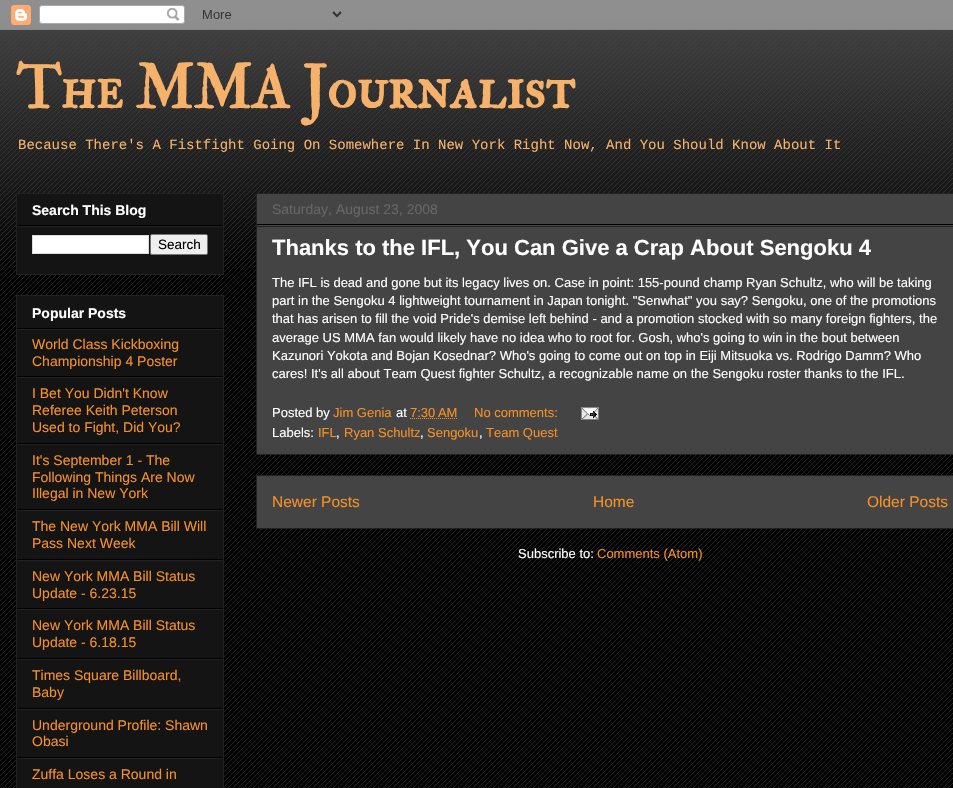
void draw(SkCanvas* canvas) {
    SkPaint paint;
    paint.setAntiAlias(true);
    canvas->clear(0xFF000000);
    canvas->drawImageRect(SkImages::DeferredFromEncodedData(SkData::MakeFromFileName("img1.png")), SkRect::MakeXYWH(0, 13, 953, 775), SkSamplingOptions());
    canvas->drawImageRect(SkImages::DeferredFromEncodedData(SkData::MakeFromFileName("img2.png")), SkRect::MakeXYWH(0, 0, 953, 268), SkSamplingOptions());
    canvas->drawImageRect(SkImages::DeferredFromEncodedData(SkData::MakeFromFileName("img3.png")), SkRect::MakeXYWH(0, 0, 953, 30), SkSamplingOptions());
    SkFont font1(fontMgr->matchFamilyStyle("IM FELL Double Pica SC", SkFontStyle::Bold()), 60);
    font1.setSubpixel(true);
    paint.setColor(0xFFF6B26B);
    canvas->drawString("The MMA Journalist", 16, 108, font1, paint);
    SkFont font2(fontMgr->matchFamilyStyle("Liberation Mono", SkFontStyle::Normal()), 14);
    font2.setSubpixel(true);
    canvas->drawString("Because There's A Fistfight Going On Somewhere In New York Right Now, And You Should Know About It", 18, 149, font2, paint);
    paint.setColor(0xFF141414);
    canvas->drawRect(SkRect::MakeXYWH(16.5f, 193.5f, 207, 81), paint);
    paint.setStyle(SkPaint::kStroke_Style);
    paint.setStrokeWidth(1);
    paint.setColor(0xFF222222);
    canvas->drawRect(SkRect::MakeXYWH(16.5f, 193.5f, 207, 81), paint);
    paint.setStyle(SkPaint::kFill_Style);
    paint.setColor(0xFF000000);
    canvas->drawRect(SkRect::MakeXYWH(17, 225, 206, 1), paint);
    SkFont font3(fontMgr->matchFamilyStyle("Liberation Sans", SkFontStyle::Bold()), 14);
    font3.setSubpixel(true);
    paint.setColor(0xFFFFFFFF);
    canvas->drawString("Search This Blog", 32, 215, font3, paint);
    paint.setColor(0xFF222222);
    canvas->drawRect(SkRect::MakeXYWH(17, 226, 206, 1), paint);
    paint.setColor(0xFFFFFFFF);
    canvas->drawRect(SkRect::MakeXYWH(32.5f, 235.5f, 116, 18), paint);
    paint.setStyle(SkPaint::kStroke_Style);
    paint.setColor(0xFFDDDDDD);
    canvas->drawRect(SkRect::MakeXYWH(32.5f, 235.5f, 116, 18), paint);
    paint.setStyle(SkPaint::kFill_Style);
    paint.setColor(0xFFEFEFEF);
    canvas->drawRoundRect(SkRect::MakeXYWH(150.5f, 234.5f, 57, 20), 1.5f, 1.5f, paint);
    paint.setStyle(SkPaint::kStroke_Style);
    paint.setColor(0xFF767676);
    canvas->drawRoundRect(SkRect::MakeXYWH(150.5f, 234.5f, 57, 20), 1.5f, 1.5f, paint);
    SkFont font4(fontMgr->matchFamilyStyle("Liberation Sans", SkFontStyle::Normal()), 13.5f);
    font4.setSubpixel(true);
    paint.setStyle(SkPaint::kFill_Style);
    paint.setColor(0xFF000000);
    canvas->drawString("Search", 158, 249, font4, paint);
    paint.setColor(0xFF141414);
    canvas->drawRect(SkRect::MakeXYWH(16.5f, 295.5f, 207, 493), paint);
    paint.setStyle(SkPaint::kStroke_Style);
    paint.setColor(0xFF222222);
    canvas->drawRect(SkRect::MakeXYWH(16.5f, 295.5f, 207, 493), paint);
    paint.setStyle(SkPaint::kFill_Style);
    paint.setColor(0xFF000000);
    canvas->drawRect(SkRect::MakeXYWH(17, 328, 206, 1), paint);
    paint.setColor(0xFFFFFFFF);
    canvas->drawString("Popular Posts", 32, 318, font3, paint);
    paint.setColor(0xFF222222);
    canvas->drawRect(SkRect::MakeXYWH(17, 329, 206, 1), paint);
    paint.setColor(0xFF000000);
    canvas->drawRect(SkRect::MakeXYWH(17, 376, 206, 1), paint);
    SkFont font5(fontMgr->matchFamilyStyle("Liberation Sans", SkFontStyle::Normal()), 14);
    font5.setSubpixel(true);
    paint.setColor(0xFFF69025);
    canvas->drawString("World Class Kickboxing", 32, 349, font5, paint);
    canvas->drawString("Championship 4 Poster", 32, 366, font5, paint);
    paint.setColor(0xFF222222);
    canvas->drawRect(SkRect::MakeXYWH(17, 377, 206, 1), paint);
    paint.setColor(0xFF000000);
    canvas->drawRect(SkRect::MakeXYWH(17, 443, 206, 1), paint);
    paint.setColor(0xFFF69025);
    canvas->drawString("I Bet You Didn't Know", 32, 398, font5, paint);
    canvas->drawString("Referee Keith Peterson", 32, 415, font5, paint);
    canvas->drawString("Used to Fight, Did You?", 32, 432, font5, paint);
    paint.setColor(0xFF222222);
    canvas->drawRect(SkRect::MakeXYWH(17, 444, 206, 1), paint);
    paint.setColor(0xFF000000);
    canvas->drawRect(SkRect::MakeXYWH(17, 509, 206, 1), paint);
    paint.setColor(0xFFF69025);
    canvas->drawString("It's September 1 - The", 32, 465, font5, paint);
    canvas->drawString("Following Things Are Now", 32, 482, font5, paint);
    canvas->drawString("Illegal in New York", 32, 498, font5, paint);
    paint.setColor(0xFF222222);
    canvas->drawRect(SkRect::MakeXYWH(17, 510, 206, 1), paint);
    paint.setColor(0xFF000000);
    canvas->drawRect(SkRect::MakeXYWH(17, 559, 206, 1), paint);
    paint.setColor(0xFFF69025);
    canvas->drawString("The New York MMA Bill Will", 32, 531, font5, paint);
    canvas->drawString("Pass Next Week", 32, 548, font5, paint);
    paint.setColor(0xFF222222);
    canvas->drawRect(SkRect::MakeXYWH(17, 560, 206, 1), paint);
    paint.setColor(0xFF000000);
    canvas->drawRect(SkRect::MakeXYWH(17, 608, 206, 1), paint);
    paint.setColor(0xFFF69025);
    canvas->drawString("New York MMA Bill Status", 32, 581, font5, paint);
    canvas->drawString("Update - 6.23.15", 32, 598, font5, paint);
    paint.setColor(0xFF222222);
    canvas->drawRect(SkRect::MakeXYWH(17, 609, 206, 1), paint);
    paint.setColor(0xFF000000);
    canvas->drawRect(SkRect::MakeXYWH(17, 658, 206, 1), paint);
    paint.setColor(0xFFF69025);
    canvas->drawString("New York MMA Bill Status", 32, 630, font5, paint);
    canvas->drawString("Update - 6.18.15", 32, 647, font5, paint);
    paint.setColor(0xFF222222);
    canvas->drawRect(SkRect::MakeXYWH(17, 659, 206, 1), paint);
    paint.setColor(0xFF000000);
    canvas->drawRect(SkRect::MakeXYWH(17, 708, 206, 1), paint);
    paint.setColor(0xFFF69025);
    canvas->drawString("Times Square Billboard,", 32, 680, font5, paint);
    canvas->drawString("Baby", 32, 697, font5, paint);
    paint.setColor(0xFF222222);
    canvas->drawRect(SkRect::MakeXYWH(17, 709, 206, 1), paint);
    paint.setColor(0xFF000000);
    canvas->drawRect(SkRect::MakeXYWH(17, 757, 206, 1), paint);
    paint.setColor(0xFFF69025);
    canvas->drawString("Underground Profile: Shawn", 32, 730, font5, paint);
    canvas->drawString("Obasi", 32, 746, font5, paint);
    paint.setColor(0xFF222222);
    canvas->drawRect(SkRect::MakeXYWH(17, 758, 206, 1), paint);
    paint.setColor(0xFFF69025);
    canvas->drawString("Zuffa Loses a Round in", 32, 779, font5, paint);
    paint.setColor(0xFF444444);
    canvas->drawRect(SkRect::MakeXYWH(256.5f, 193.5f, 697, 261), paint);
    paint.setStyle(SkPaint::kStroke_Style);
    paint.setColor(0xFF222222);
    canvas->drawRect(SkRect::MakeXYWH(256.5f, 193.5f, 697, 261), paint);
    paint.setStyle(SkPaint::kFill_Style);
    paint.setColor(0xFF000000);
    canvas->drawRect(SkRect::MakeXYWH(257, 224, 696, 1), paint);
    paint.setColor(0xFF666666);
    canvas->drawString("Saturday, August 23, 2008", 272, 214, font5, paint);
    paint.setColor(0xFF222222);
    canvas->drawRect(SkRect::MakeXYWH(257, 226, 696, 1), paint);
    SkFont font6(fontMgr->matchFamilyStyle("Liberation Sans", SkFontStyle::Bold()), 22);
    font6.setSubpixel(true);
    paint.setColor(0xFFFFFFFF);
    canvas->drawString("Thanks to the IFL, You Can Give a Crap About Sengoku 4", 272, 255, font6, paint);
    SkFont font7(fontMgr->matchFamilyStyle("Liberation Sans", SkFontStyle::Normal()), 13);
    font7.setSubpixel(true);
    canvas->drawString("The IFL is dead and gone but its legacy lives on. Case in point: 155-pound champ Ryan Schultz, who will be taking", 272, 287, font7, paint);
    canvas->drawString("part in the Sengoku 4 lightweight tournament in Japan tonight. \"Senwhat\" you say? Sengoku, one of the promotions", 272, 305, font7, paint);
    canvas->drawString("that has arisen to fill the void Pride's demise left behind - and a promotion stocked with so many foreign fighters, the", 272, 323, font7, paint);
    canvas->drawString("average US MMA fan would likely have no idea who to root for. Gosh, who's going to win in the bout between", 272, 342, font7, paint);
    canvas->drawString("Kazunori Yokota and Bojan Kosednar? Who's going to come out on top in Eiji Mitsuoka vs. Rodrigo Damm? Who", 272, 360, font7, paint);
    canvas->drawString("cares! It's all about Team Quest fighter Schultz, a recognizable name on the Sengoku roster thanks to the IFL.", 272, 378, font7, paint);
    canvas->drawString("Posted by", 272, 417, font7, paint);
    paint.setColor(0xFFF69025);
    canvas->drawString("Jim Genia", 333, 417, font7, paint);
    paint.setColor(0xFFFFFFFF);
    canvas->drawString("at", 396, 417, font7, paint);
    paint.setColor(0xFFF69025);
    canvas->drawString("7:30 AM", 410, 417, font7, paint);
    paint.setStyle(SkPaint::kStroke_Style);
    paint.setPathEffect(SkDashPathEffect::Make({{1, 1}}, 0));
    canvas->drawPath(SkPathBuilder().moveTo(410, 418.5f).lineTo(457.5f, 418.5f).detach(), paint);
    paint.setPathEffect(nullptr);
    paint.setStyle(SkPaint::kFill_Style);
    canvas->drawString("No comments:", 474, 417, font7, paint);
    canvas->drawImageRect(SkImages::DeferredFromEncodedData(SkData::MakeFromFileName("img4.png")), SkRect::MakeXYWH(581, 407, 18, 13), SkSamplingOptions());
    paint.setColor(0xFFFFFFFF);
    canvas->drawString("Labels:", 272, 437, font7, paint);
    paint.setColor(0xFFF69025);
    canvas->drawString("IFL", 318, 437, font7, paint);
    paint.setColor(0xFFFFFFFF);
    canvas->drawString(",", 336, 437, font7, paint);
    paint.setColor(0xFFF69025);
    canvas->drawString("Ryan Schultz", 344, 437, font7, paint);
    paint.setColor(0xFFFFFFFF);
    canvas->drawString(",", 420, 437, font7, paint);
    paint.setColor(0xFFF69025);
    canvas->drawString("Sengoku", 427, 437, font7, paint);
    paint.setColor(0xFFFFFFFF);
    canvas->drawString(",", 479, 437, font7, paint);
    paint.setColor(0xFFF69025);
    canvas->drawString("Team Quest", 486, 437, font7, paint);
    paint.setColor(0xFF444444);
    canvas->drawRect(SkRect::MakeXYWH(256.5f, 475.5f, 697, 53), paint);
    paint.setStyle(SkPaint::kStroke_Style);
    paint.setColor(0xFF222222);
    canvas->drawRect(SkRect::MakeXYWH(256.5f, 475.5f, 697, 53), paint);
    SkFont font8(fontMgr->matchFamilyStyle("Liberation Sans", SkFontStyle::Normal()), 15.5f);
    font8.setSubpixel(true);
    paint.setStyle(SkPaint::kFill_Style);
    paint.setColor(0xFFF69025);
    canvas->drawString("Newer Posts", 272, 507, font8, paint);
    canvas->drawString("Home", 593, 507, font8, paint);
    canvas->drawString("Older Posts", 867, 507, font8, paint);
    paint.setColor(0xFFFFFFFF);
    canvas->drawString("Subscribe to:", 518, 558, font7, paint);
    paint.setColor(0xFFF69025);
    canvas->drawString("Comments (Atom)", 597, 558, font7, paint);
}
